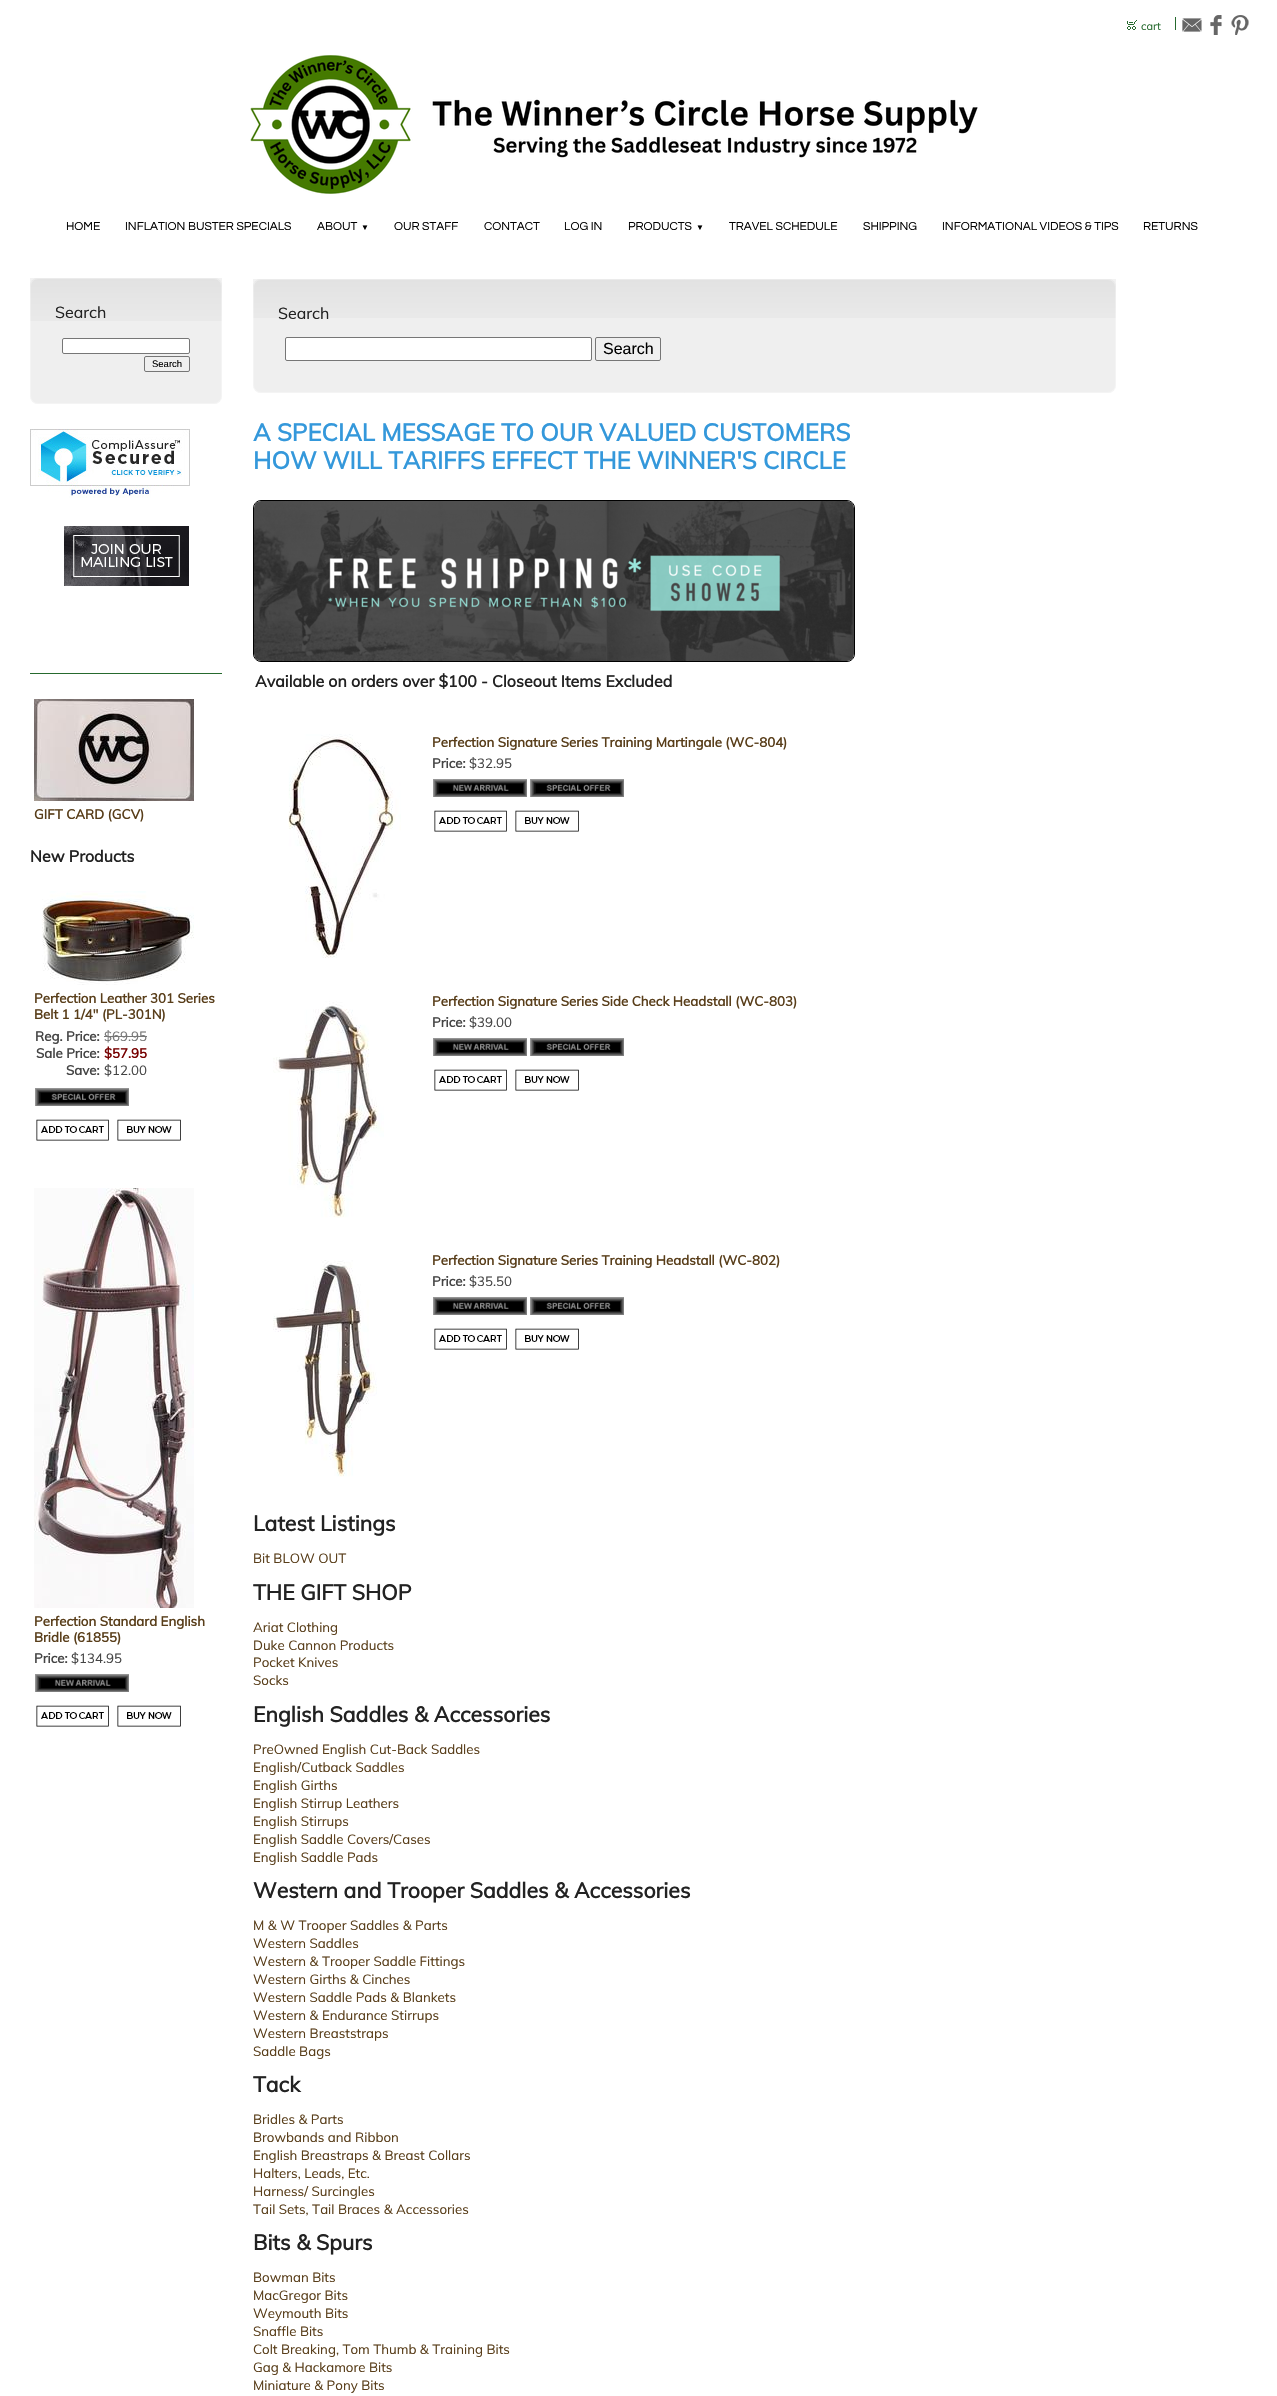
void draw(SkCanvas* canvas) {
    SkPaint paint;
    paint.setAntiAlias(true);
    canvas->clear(0xFFFFFFFF);
    canvas->drawImageRect(SkImages::DeferredFromEncodedData(SkData::MakeFromFileName("img1.png")), SkRect::MakeXYWH(1127, 20, 10, 10), SkSamplingOptions());
    SkFont font1(fontMgr->matchFamilyStyle("Muli", SkFontStyle::Normal()), 11);
    font1.setSubpixel(true);
    paint.setColor(0xFF266A2E);
    canvas->drawString("cart", 1141, 30, font1, paint);
    canvas->drawRect(SkRect::MakeXYWH(1175, 17, 1, 13), paint);
    canvas->drawImageRect(SkImages::DeferredFromEncodedData(SkData::MakeFromFileName("img2.png")), SkRect::MakeXYWH(1182, 18, 20, 14), SkSamplingOptions());
    canvas->drawImageRect(SkImages::DeferredFromEncodedData(SkData::MakeFromFileName("img3.png")), SkRect::MakeXYWH(1210, 15, 12, 20), SkSamplingOptions());
    canvas->drawImageRect(SkImages::DeferredFromEncodedData(SkData::MakeFromFileName("img4.png")), SkRect::MakeXYWH(1231, 15, 18, 20), SkSamplingOptions());
    canvas->drawImageRect(SkImages::DeferredFromEncodedData(SkData::MakeFromFileName("img5.png")), SkRect::MakeXYWH(250, 55, 728, 139), SkSamplingOptions());
    SkFont font2(fontMgr->matchFamilyStyle("Questrial", SkFontStyle::Normal()), 12);
    font2.setSubpixel(true);
    paint.setColor(0xFF000000);
    canvas->drawString("HOME", 66, 230, font2, paint);
    canvas->drawString("INFLATION BUSTER SPECIALS", 125, 230, font2, paint);
    canvas->drawString("ABOUT", 317, 230, font2, paint);
    SkFont font3(fontMgr->matchFamilyStyle("Liberation Sans", SkFontStyle::Normal()), 8);
    font3.setSubpixel(true);
    canvas->drawString("▼", 361, 230, font3, paint);
    canvas->drawString("OUR STAFF", 394, 230, font2, paint);
    canvas->drawString("CONTACT", 484, 230, font2, paint);
    canvas->drawString("LOG IN", 564, 230, font2, paint);
    canvas->drawString("PRODUCTS", 628, 230, font2, paint);
    canvas->drawString("▼", 696, 230, font3, paint);
    canvas->drawString("TRAVEL SCHEDULE", 729, 230, font2, paint);
    canvas->drawString("SHIPPING", 863, 230, font2, paint);
    canvas->drawString("INFORMATIONAL VIDEOS & TIPS", 942, 230, font2, paint);
    canvas->drawString("RETURNS", 1143, 230, font2, paint);
    paint.setColor(0xFFEFEFEF);
    canvas->drawRoundRect(SkRect::MakeXYWH(30, 278, 192, 126), 8, 8, paint);
    {
        const SkColor colors[] = {0x0D000000, 0x00000000};
        const float stops[] = {0, 0.6f};
        const SkPoint ends[] = {{126, 278}, {126, 404}};
        paint.setShader(SkGradientShader::MakeLinear(ends, colors, stops, 2, SkTileMode::kClamp));
        paint.setAlpha(255);
    }
    canvas->drawRect(SkRect::MakeXYWH(30, 278, 192, 43), paint);
    paint.setStyle(SkPaint::kStroke_Style);
    paint.setStrokeWidth(1);
    paint.setShader(nullptr);
    paint.setColor(0x4DFFFFFF);
    canvas->drawRoundRect(SkRect::MakeXYWH(30.5f, 278.5f, 191, 125), 7.5f, 7.5f, paint);
    SkFont font4(fontMgr->matchFamilyStyle("Muli", SkFontStyle::Normal()), 16);
    font4.setSubpixel(true);
    paint.setStyle(SkPaint::kFill_Style);
    paint.setColor(0xFF222222);
    canvas->drawString("Search", 55, 318, font4, paint);
    paint.setColor(0xFFFFFFFF);
    canvas->drawRoundRect(SkRect::MakeXYWH(62.5f, 338.5f, 127, 15), 1.5f, 1.5f, paint);
    paint.setStyle(SkPaint::kStroke_Style);
    paint.setColor(0xFF767676);
    canvas->drawRoundRect(SkRect::MakeXYWH(62.5f, 338.5f, 127, 15), 1.5f, 1.5f, paint);
    canvas->drawRoundRect(SkRect::MakeXYWH(144.5f, 356.5f, 45, 15), 1.5f, 1.5f, paint);
    SkFont font5(fontMgr->matchFamilyStyle("Liberation Sans", SkFontStyle::Normal()), 9.5f);
    font5.setSubpixel(true);
    paint.setStyle(SkPaint::kFill_Style);
    paint.setColor(0xFF000000);
    canvas->drawString("Search", 152, 367, font5, paint);
    canvas->drawImageRect(SkImages::DeferredFromEncodedData(SkData::MakeFromFileName("img6.png")), SkRect::MakeXYWH(30, 429, 160, 69), SkSamplingOptions());
    canvas->drawImageRect(SkImages::DeferredFromEncodedData(SkData::MakeFromFileName("img7.png")), SkRect::MakeXYWH(64, 526, 125, 60), SkSamplingOptions());
    paint.setColor(0xFF266A2E);
    canvas->drawRect(SkRect::MakeXYWH(30, 673, 192, 1), paint);
    canvas->drawImageRect(SkImages::DeferredFromEncodedData(SkData::MakeFromFileName("img8.png")), SkRect::MakeXYWH(34, 699, 160, 102), SkSamplingOptions());
    SkFont font6(fontMgr->matchFamilyStyle("Muli", SkFontStyle::Bold()), 13.3f);
    font6.setSubpixel(true);
    paint.setColor(0xFF593E1A);
    canvas->drawString("GIFT CARD (GCV)", 34, 819, font6, paint);
    SkFont font7(fontMgr->matchFamilyStyle("Muli", SkFontStyle::Bold()), 16);
    font7.setSubpixel(true);
    paint.setColor(0xFF222222);
    canvas->drawString("New Products", 30, 862, font7, paint);
    canvas->drawImageRect(SkImages::DeferredFromEncodedData(SkData::MakeFromFileName("img9.png")), SkRect::MakeXYWH(42, 891, 152, 94), SkSamplingOptions());
    paint.setColor(0xFF593E1A);
    canvas->drawString("Perfection Leather 301 Series", 34, 1003, font6, paint);
    canvas->drawString("Belt 1 1/4\" (PL-301N)", 34, 1019, font6, paint);
    paint.setColor(0xFF444444);
    canvas->drawString("Reg. Price:", 35, 1041, font6, paint);
    SkFont font8(fontMgr->matchFamilyStyle("Muli", SkFontStyle::Normal()), 13.3f);
    font8.setSubpixel(true);
    paint.setColor(0xFF777777);
    canvas->drawString("$69.95", 104, 1041, font8, paint);
    canvas->drawRect(SkRect::MakeXYWH(104, 1036, 43, 1), paint);
    paint.setColor(0xFF444444);
    canvas->drawString("Sale Price:", 36, 1058, font6, paint);
    paint.setColor(0xFF770000);
    canvas->drawString("$57.95", 104, 1058, font6, paint);
    paint.setColor(0xFF444444);
    canvas->drawString("Save:", 66, 1075, font6, paint);
    canvas->drawString("$12.00", 104, 1075, font8, paint);
    canvas->drawImageRect(SkImages::DeferredFromEncodedData(SkData::MakeFromFileName("img10.png")), SkRect::MakeXYWH(35, 1088, 94, 18), SkSamplingOptions());
    canvas->drawImageRect(SkImages::DeferredFromEncodedData(SkData::MakeFromFileName("img11.png")), SkRect::MakeXYWH(36, 1119, 73, 22), SkSamplingOptions());
    canvas->drawImageRect(SkImages::DeferredFromEncodedData(SkData::MakeFromFileName("img12.png")), SkRect::MakeXYWH(117, 1119, 64, 22), SkSamplingOptions());
    canvas->drawImageRect(SkImages::DeferredFromEncodedData(SkData::MakeFromFileName("img13.png")), SkRect::MakeXYWH(34, 1188, 160, 420), SkSamplingOptions());
    paint.setColor(0xFF593E1A);
    canvas->drawString("Perfection Standard English", 34, 1626, font6, paint);
    canvas->drawString("Bridle (61855)", 34, 1642, font6, paint);
    paint.setColor(0xFF444444);
    canvas->drawString("Price:", 34, 1663, font6, paint);
    canvas->drawString("$134.95", 71, 1663, font8, paint);
    canvas->drawImageRect(SkImages::DeferredFromEncodedData(SkData::MakeFromFileName("img14.png")), SkRect::MakeXYWH(35, 1674, 94, 18), SkSamplingOptions());
    canvas->drawImageRect(SkImages::DeferredFromEncodedData(SkData::MakeFromFileName("img11.png")), SkRect::MakeXYWH(36, 1705, 73, 22), SkSamplingOptions());
    canvas->drawImageRect(SkImages::DeferredFromEncodedData(SkData::MakeFromFileName("img12.png")), SkRect::MakeXYWH(117, 1705, 64, 22), SkSamplingOptions());
    paint.setColor(0xFFEFEFEF);
    canvas->drawRoundRect(SkRect::MakeXYWH(253, 279, 863, 114), 8, 8, paint);
    {
        const SkColor colors[] = {0x0D000000, 0x00000000};
        const float stops[] = {0, 0.6f};
        const SkPoint ends[] = {{685, 279}, {685, 393}};
        paint.setShader(SkGradientShader::MakeLinear(ends, colors, stops, 2, SkTileMode::kClamp));
        paint.setAlpha(255);
    }
    canvas->drawRect(SkRect::MakeXYWH(253, 279, 863, 39), paint);
    paint.setStyle(SkPaint::kStroke_Style);
    paint.setShader(nullptr);
    paint.setColor(0x4DFFFFFF);
    canvas->drawRoundRect(SkRect::MakeXYWH(253.5f, 279.5f, 862, 113), 7.5f, 7.5f, paint);
    paint.setStyle(SkPaint::kFill_Style);
    paint.setColor(0xFF222222);
    canvas->drawString("Search", 278, 319, font4, paint);
    paint.setColor(0xFFFFFFFF);
    canvas->drawRoundRect(SkRect::MakeXYWH(285.5f, 337.5f, 306, 23), 1.5f, 1.5f, paint);
    paint.setStyle(SkPaint::kStroke_Style);
    paint.setColor(0xFF767676);
    canvas->drawRoundRect(SkRect::MakeXYWH(285.5f, 337.5f, 306, 23), 1.5f, 1.5f, paint);
    canvas->drawRoundRect(SkRect::MakeXYWH(595.5f, 337.5f, 65, 23), 1.5f, 1.5f, paint);
    SkFont font9(fontMgr->matchFamilyStyle("Liberation Sans", SkFontStyle::Normal()), 16);
    font9.setSubpixel(true);
    paint.setStyle(SkPaint::kFill_Style);
    paint.setColor(0xFF000000);
    canvas->drawString("Search", 603, 354, font9, paint);
    SkFont font10(fontMgr->matchFamilyStyle("Muli", SkFontStyle::Bold()), 24);
    font10.setSubpixel(true);
    paint.setColor(0xFF3498DB);
    canvas->drawString("A SPECIAL MESSAGE TO OUR VALUED CUSTOMERS", 253, 441, font10, paint);
    canvas->drawString("HOW WILL TARIFFS EFFECT THE WINNER'S CIRCLE", 253, 469, font10, paint);
    paint.setStyle(SkPaint::kStroke_Style);
    paint.setColor(0xFF000000);
    canvas->drawRoundRect(SkRect::MakeXYWH(253.5f, 500.5f, 601, 161), 7.5f, 7.5f, paint);
    canvas->drawImageRect(SkImages::DeferredFromEncodedData(SkData::MakeFromFileName("img15.png")), SkRect::MakeXYWH(254, 501, 600, 160), SkSamplingOptions());
    paint.setStyle(SkPaint::kFill_Style);
    paint.setColor(0xFF222222);
    canvas->drawString("Available on orders over $100 - Closeout Items Excluded", 255, 687, font7, paint);
    canvas->drawImageRect(SkImages::DeferredFromEncodedData(SkData::MakeFromFileName("img16.png")), SkRect::MakeXYWH(288, 734, 113, 224), SkSamplingOptions());
    paint.setColor(0xFF593E1A);
    canvas->drawString("Perfection Signature Series Training Martingale (WC-804)", 432, 747, font6, paint);
    paint.setColor(0xFF444444);
    canvas->drawString("Price:", 432, 768, font6, paint);
    canvas->drawString("$32.95", 469, 768, font8, paint);
    canvas->drawImageRect(SkImages::DeferredFromEncodedData(SkData::MakeFromFileName("img14.png")), SkRect::MakeXYWH(433, 779, 94, 18), SkSamplingOptions());
    canvas->drawImageRect(SkImages::DeferredFromEncodedData(SkData::MakeFromFileName("img10.png")), SkRect::MakeXYWH(530, 779, 94, 18), SkSamplingOptions());
    canvas->drawImageRect(SkImages::DeferredFromEncodedData(SkData::MakeFromFileName("img11.png")), SkRect::MakeXYWH(434, 810, 73, 22), SkSamplingOptions());
    canvas->drawImageRect(SkImages::DeferredFromEncodedData(SkData::MakeFromFileName("img12.png")), SkRect::MakeXYWH(515, 810, 64, 22), SkSamplingOptions());
    canvas->drawImageRect(SkImages::DeferredFromEncodedData(SkData::MakeFromFileName("img17.png")), SkRect::MakeXYWH(273, 1001, 111, 217), SkSamplingOptions());
    paint.setColor(0xFF593E1A);
    canvas->drawString("Perfection Signature Series Side Check Headstall (WC-803)", 432, 1006, font6, paint);
    paint.setColor(0xFF444444);
    canvas->drawString("Price:", 432, 1027, font6, paint);
    canvas->drawString("$39.00", 469, 1027, font8, paint);
    canvas->drawImageRect(SkImages::DeferredFromEncodedData(SkData::MakeFromFileName("img14.png")), SkRect::MakeXYWH(433, 1038, 94, 18), SkSamplingOptions());
    canvas->drawImageRect(SkImages::DeferredFromEncodedData(SkData::MakeFromFileName("img10.png")), SkRect::MakeXYWH(530, 1038, 94, 18), SkSamplingOptions());
    canvas->drawImageRect(SkImages::DeferredFromEncodedData(SkData::MakeFromFileName("img11.png")), SkRect::MakeXYWH(434, 1069, 73, 22), SkSamplingOptions());
    canvas->drawImageRect(SkImages::DeferredFromEncodedData(SkData::MakeFromFileName("img12.png")), SkRect::MakeXYWH(515, 1069, 64, 22), SkSamplingOptions());
    canvas->drawImageRect(SkImages::DeferredFromEncodedData(SkData::MakeFromFileName("img18.png")), SkRect::MakeXYWH(273, 1260, 104, 217), SkSamplingOptions());
    paint.setColor(0xFF593E1A);
    canvas->drawString("Perfection Signature Series Training Headstall (WC-802)", 432, 1265, font6, paint);
    paint.setColor(0xFF444444);
    canvas->drawString("Price:", 432, 1286, font6, paint);
    canvas->drawString("$35.50", 469, 1286, font8, paint);
    canvas->drawImageRect(SkImages::DeferredFromEncodedData(SkData::MakeFromFileName("img14.png")), SkRect::MakeXYWH(433, 1297, 94, 18), SkSamplingOptions());
    canvas->drawImageRect(SkImages::DeferredFromEncodedData(SkData::MakeFromFileName("img10.png")), SkRect::MakeXYWH(530, 1297, 94, 18), SkSamplingOptions());
    canvas->drawImageRect(SkImages::DeferredFromEncodedData(SkData::MakeFromFileName("img11.png")), SkRect::MakeXYWH(434, 1328, 73, 22), SkSamplingOptions());
    canvas->drawImageRect(SkImages::DeferredFromEncodedData(SkData::MakeFromFileName("img12.png")), SkRect::MakeXYWH(515, 1328, 64, 22), SkSamplingOptions());
    SkFont font11(fontMgr->matchFamilyStyle("Muli", SkFontStyle::Bold()), 21.3f);
    font11.setSubpixel(true);
    paint.setColor(0xFF222222);
    canvas->drawString("Latest Listings", 253, 1531, font11, paint);
    paint.setColor(0xFF593E1A);
    canvas->drawString("Bit BLOW OUT", 253, 1563, font8, paint);
    paint.setColor(0xFF222222);
    canvas->drawString("THE GIFT SHOP", 253, 1600, font11, paint);
    paint.setColor(0xFF593E1A);
    canvas->drawString("Ariat Clothing", 253, 1632, font8, paint);
    canvas->drawString("Duke Cannon Products", 253, 1650, font8, paint);
    canvas->drawString("Pocket Knives", 253, 1667, font8, paint);
    canvas->drawString("Socks", 253, 1685, font8, paint);
    paint.setColor(0xFF222222);
    canvas->drawString("English Saddles & Accessories", 253, 1722, font11, paint);
    paint.setColor(0xFF593E1A);
    canvas->drawString("PreOwned English Cut-Back Saddles", 253, 1754, font8, paint);
    canvas->drawString("English/Cutback Saddles", 253, 1772, font8, paint);
    canvas->drawString("English Girths", 253, 1790, font8, paint);
    canvas->drawString("English Stirrup Leathers", 253, 1808, font8, paint);
    canvas->drawString("English Stirrups", 253, 1826, font8, paint);
    canvas->drawString("English Saddle Covers/Cases", 253, 1844, font8, paint);
    canvas->drawString("English Saddle Pads", 253, 1862, font8, paint);
    paint.setColor(0xFF222222);
    canvas->drawString("Western and Trooper Saddles & Accessories", 253, 1898, font11, paint);
    paint.setColor(0xFF593E1A);
    canvas->drawString("M & W Trooper Saddles & Parts", 253, 1930, font8, paint);
    canvas->drawString("Western Saddles", 253, 1948, font8, paint);
    canvas->drawString("Western & Trooper Saddle Fittings", 253, 1966, font8, paint);
    canvas->drawString("Western Girths & Cinches", 253, 1984, font8, paint);
    canvas->drawString("Western Saddle Pads & Blankets", 253, 2002, font8, paint);
    canvas->drawString("Western & Endurance Stirrups", 253, 2020, font8, paint);
    canvas->drawString("Western Breaststraps", 253, 2038, font8, paint);
    canvas->drawString("Saddle Bags", 253, 2056, font8, paint);
    paint.setColor(0xFF222222);
    canvas->drawString("Tack", 253, 2092, font11, paint);
    paint.setColor(0xFF593E1A);
    canvas->drawString("Bridles & Parts", 253, 2124, font8, paint);
    canvas->drawString("Browbands and Ribbon", 253, 2142, font8, paint);
    canvas->drawString("English Breastraps & Breast Collars", 253, 2160, font8, paint);
    canvas->drawString("Halters, Leads, Etc.", 253, 2178, font8, paint);
    canvas->drawString("Harness/ Surcingles", 253, 2196, font8, paint);
    canvas->drawString("Tail Sets, Tail Braces & Accessories", 253, 2214, font8, paint);
    paint.setColor(0xFF222222);
    canvas->drawString("Bits & Spurs", 253, 2250, font11, paint);
    paint.setColor(0xFF593E1A);
    canvas->drawString("Bowman Bits", 253, 2282, font8, paint);
    canvas->drawString("MacGregor Bits", 253, 2300, font8, paint);
    canvas->drawString("Weymouth Bits", 253, 2318, font8, paint);
    canvas->drawString("Snaffle Bits", 253, 2336, font8, paint);
    canvas->drawString("Colt Breaking, Tom Thumb & Training Bits", 253, 2354, font8, paint);
    canvas->drawString("Gag & Hackamore Bits", 253, 2372, font8, paint);
    canvas->drawString("Miniature & Pony Bits", 253, 2390, font8, paint);
}
